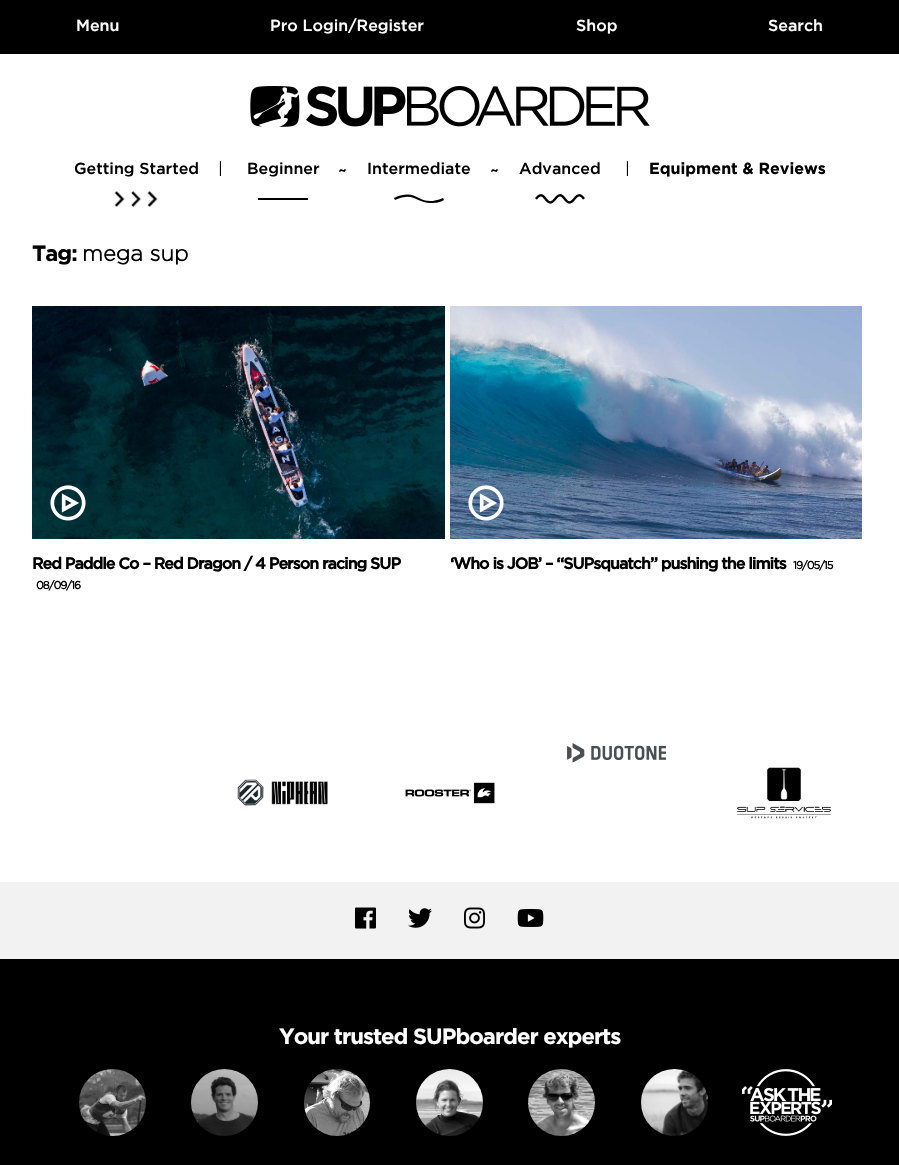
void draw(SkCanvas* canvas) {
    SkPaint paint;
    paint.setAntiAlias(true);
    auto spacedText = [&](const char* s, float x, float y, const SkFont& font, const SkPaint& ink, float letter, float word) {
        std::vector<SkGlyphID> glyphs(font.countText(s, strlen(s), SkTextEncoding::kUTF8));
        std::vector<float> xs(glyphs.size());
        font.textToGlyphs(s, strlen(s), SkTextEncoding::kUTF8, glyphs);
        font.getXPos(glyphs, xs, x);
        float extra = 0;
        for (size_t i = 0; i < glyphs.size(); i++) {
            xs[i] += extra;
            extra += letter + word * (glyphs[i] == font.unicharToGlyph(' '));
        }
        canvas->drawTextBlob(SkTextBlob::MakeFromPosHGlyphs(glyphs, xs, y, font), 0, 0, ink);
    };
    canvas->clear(0xFFFFFFFF);
    paint.setColor(0xFF000000);
    canvas->drawRect(SkRect::MakeXYWH(0, 0, 899, 54), paint);
    SkFont font1(fontMgr->matchFamilyStyle("Gotham", SkFontStyle(500, SkFontStyle::kNormal_Width, SkFontStyle::kUpright_Slant)), 16);
    font1.setSubpixel(true);
    paint.setColor(0xFFFFFFFF);
    canvas->drawString("Menu", 76, 31, font1, paint);
    canvas->drawString("Pro Login/Register", 270, 31, font1, paint);
    canvas->drawString("Shop", 576, 31, font1, paint);
    canvas->drawString("Search", 768, 31, font1, paint);
    canvas->drawImageRect(SkImages::DeferredFromEncodedData(SkData::MakeFromFileName("img1.png")), SkRect::MakeXYWH(250, 86, 400, 41), SkSamplingOptions());
    paint.setColor(0xFF000000);
    canvas->drawString("Getting Started", 74, 174, font1, paint);
    canvas->drawImageRect(SkImages::DeferredFromEncodedData(SkData::MakeFromFileName("img2.png")), SkRect::MakeXYWH(114, 191, 44, 16), SkSamplingOptions());
    SkFont font2(fontMgr->matchFamilyStyle("Gotham", SkFontStyle::Normal()), 16);
    font2.setSubpixel(true);
    canvas->drawString("|", 218, 174, font2, paint);
    canvas->drawString("Beginner", 247, 174, font1, paint);
    canvas->drawRect(SkRect::MakeXYWH(258, 198, 50, 2), paint);
    SkFont font3(fontMgr->matchFamilyStyle("Gotham", SkFontStyle(500, SkFontStyle::kNormal_Width, SkFontStyle::kUpright_Slant)), 18);
    font3.setSubpixel(true);
    canvas->drawString("~", 338, 176, font3, paint);
    canvas->drawString("Intermediate", 367, 174, font1, paint);
    canvas->drawPath(SkPathBuilder().moveTo(431, 203).cubicTo(416, 203, 414, 191, 395, 200).lineTo(394, 198).cubicTo(407, 192, 413, 195, 419, 198).cubicTo(425, 201, 431, 203, 443, 198).lineTo(444, 200).cubicTo(439, 203, 434, 203, 431, 203).close().detach(), paint);
    canvas->drawString("~", 490, 176, font3, paint);
    canvas->drawString("Advanced", 519, 174, font1, paint);
    canvas->drawImageRect(SkImages::DeferredFromEncodedData(SkData::MakeFromFileName("img3.png")), SkRect::MakeXYWH(535, 194, 50, 10), SkSamplingOptions());
    canvas->drawString("|", 625, 174, font2, paint);
    SkFont font4(fontMgr->matchFamilyStyle("Gotham", SkFontStyle::Bold()), 16);
    font4.setSubpixel(true);
    canvas->drawString("Equipment & Reviews", 649, 174, font4, paint);
    SkFont font5(fontMgr->matchFamilyStyle("Gotham", SkFontStyle::Bold()), 22);
    font5.setSubpixel(true);
    spacedText("Tag:", 32, 261, font5, paint, -1, 0);
    SkFont font6(fontMgr->matchFamilyStyle("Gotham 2", SkFontStyle::Bold()), 22);
    font6.setSubpixel(true);
    canvas->drawString("mega sup", 82, 261, font6, paint);
    canvas->drawImageRect(SkImages::DeferredFromEncodedData(SkData::MakeFromFileName("img4.png")), SkRect::MakeXYWH(32, 306, 413, 233), SkSamplingOptions());
    canvas->drawImageRect(SkImages::DeferredFromEncodedData(SkData::MakeFromFileName("img5.png")), SkRect::MakeXYWH(50, 485, 36, 36), SkSamplingOptions());
    SkFont font7(fontMgr->matchFamilyStyle("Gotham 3", SkFontStyle::Bold()), 16);
    font7.setSubpixel(true);
    spacedText("Red Paddle Co – Red Dragon / 4 Person racing SUP", 32, 569, font7, paint, -1, 0);
    SkFont font8(fontMgr->matchFamilyStyle("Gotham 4", SkFontStyle::Bold()), 11);
    font8.setSubpixel(true);
    spacedText("08/09/16", 36, 589, font8, paint, -1, 0);
    canvas->drawImageRect(SkImages::DeferredFromEncodedData(SkData::MakeFromFileName("img6.png")), SkRect::MakeXYWH(450, 306, 412, 233), SkSamplingOptions());
    canvas->drawImageRect(SkImages::DeferredFromEncodedData(SkData::MakeFromFileName("img7.png")), SkRect::MakeXYWH(468, 485, 36, 36), SkSamplingOptions());
    spacedText("‘Who is JOB’ – “SUPsquatch” pushing the limits", 450, 569, font7, paint, -1, 0);
    spacedText("19/05/15", 793, 569, font8, paint, -1, 0);
    canvas->drawImageRect(SkImages::DeferredFromEncodedData(SkData::MakeFromFileName("img8.png")), SkRect::MakeXYWH(567, 743, 99, 20), SkSamplingOptions());
    canvas->drawImageRect(SkImages::DeferredFromEncodedData(SkData::MakeFromFileName("img9.png")), SkRect::MakeXYWH(237, 779, 91, 27), SkSamplingOptions());
    canvas->drawImageRect(SkImages::DeferredFromEncodedData(SkData::MakeFromFileName("img10.png")), SkRect::MakeXYWH(405, 782, 90, 22), SkSamplingOptions());
    canvas->drawImageRect(SkImages::DeferredFromEncodedData(SkData::MakeFromFileName("img11.png")), SkRect::MakeXYWH(737, 767, 94, 52), SkSamplingOptions());
    paint.setColor(0xFFF2F2F2);
    canvas->drawRect(SkRect::MakeXYWH(0, 882, 899, 77), paint);
    canvas->drawImageRect(SkImages::DeferredFromEncodedData(SkData::MakeFromFileName("img12.png")), SkRect::MakeXYWH(355, 907, 21, 22), SkSamplingOptions());
    canvas->drawImageRect(SkImages::DeferredFromEncodedData(SkData::MakeFromFileName("img13.png")), SkRect::MakeXYWH(408, 908, 24, 20), SkSamplingOptions());
    canvas->drawImageRect(SkImages::DeferredFromEncodedData(SkData::MakeFromFileName("img14.png")), SkRect::MakeXYWH(464, 907, 21, 22), SkSamplingOptions());
    canvas->drawImageRect(SkImages::DeferredFromEncodedData(SkData::MakeFromFileName("img15.png")), SkRect::MakeXYWH(517, 909, 27, 18), SkSamplingOptions());
    paint.setColor(0xFF000000);
    canvas->drawRect(SkRect::MakeXYWH(0, 959, 899, 206), paint);
    paint.setColor(0xFFFFFFFF);
    spacedText("Your trusted SUPboarder experts", 279, 1044, font5, paint, -1, 0);
    canvas->drawImageRect(SkImages::DeferredFromEncodedData(SkData::MakeFromFileName("img16.png")), SkRect::MakeXYWH(79, 1069, 67, 67), SkSamplingOptions());
    canvas->drawImageRect(SkImages::DeferredFromEncodedData(SkData::MakeFromFileName("img17.png")), SkRect::MakeXYWH(191, 1069, 67, 67), SkSamplingOptions());
    canvas->drawImageRect(SkImages::DeferredFromEncodedData(SkData::MakeFromFileName("img18.png")), SkRect::MakeXYWH(304, 1069, 66, 67), SkSamplingOptions());
    canvas->drawImageRect(SkImages::DeferredFromEncodedData(SkData::MakeFromFileName("img19.png")), SkRect::MakeXYWH(416, 1069, 67, 67), SkSamplingOptions());
    canvas->drawImageRect(SkImages::DeferredFromEncodedData(SkData::MakeFromFileName("img20.png")), SkRect::MakeXYWH(528, 1069, 67, 67), SkSamplingOptions());
    canvas->drawImageRect(SkImages::DeferredFromEncodedData(SkData::MakeFromFileName("img21.png")), SkRect::MakeXYWH(641, 1069, 67, 67), SkSamplingOptions());
    canvas->drawImageRect(SkImages::DeferredFromEncodedData(SkData::MakeFromFileName("img22.png")), SkRect::MakeXYWH(742, 1069, 90, 67), SkSamplingOptions());
}
